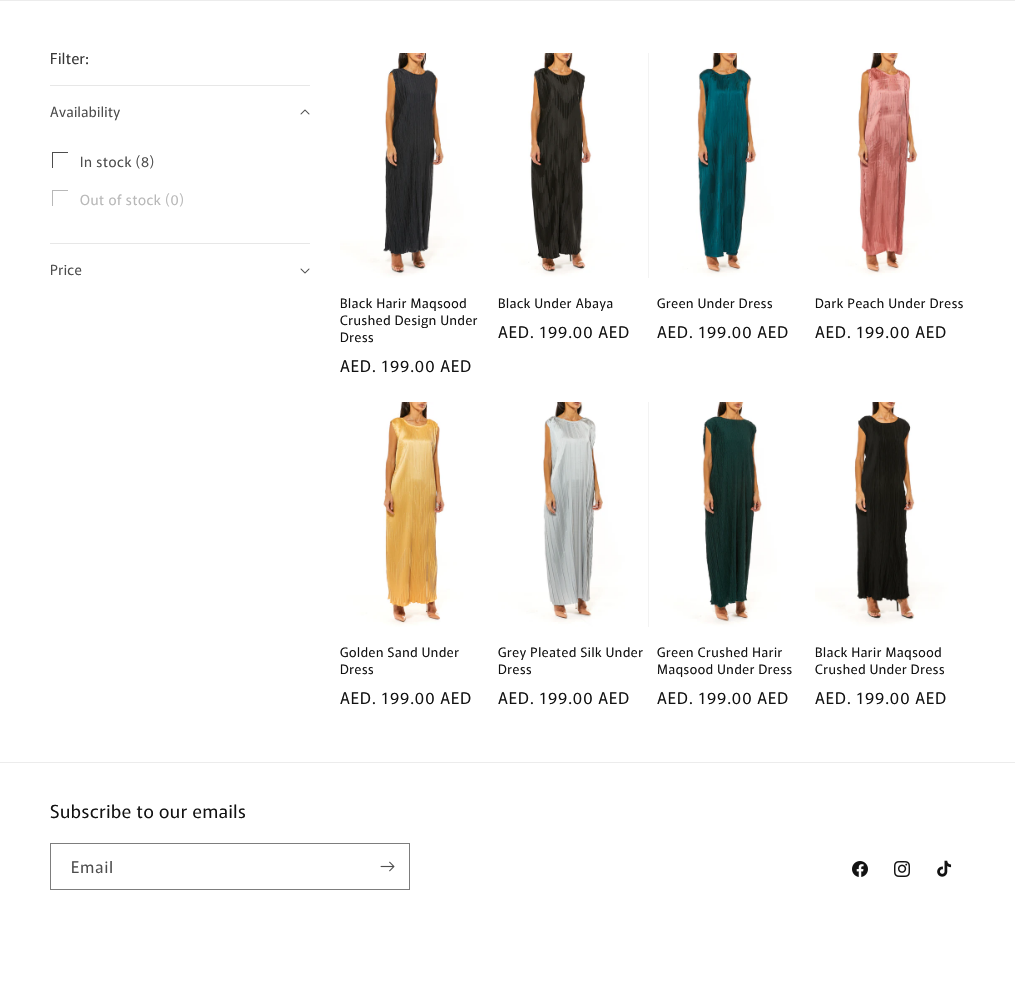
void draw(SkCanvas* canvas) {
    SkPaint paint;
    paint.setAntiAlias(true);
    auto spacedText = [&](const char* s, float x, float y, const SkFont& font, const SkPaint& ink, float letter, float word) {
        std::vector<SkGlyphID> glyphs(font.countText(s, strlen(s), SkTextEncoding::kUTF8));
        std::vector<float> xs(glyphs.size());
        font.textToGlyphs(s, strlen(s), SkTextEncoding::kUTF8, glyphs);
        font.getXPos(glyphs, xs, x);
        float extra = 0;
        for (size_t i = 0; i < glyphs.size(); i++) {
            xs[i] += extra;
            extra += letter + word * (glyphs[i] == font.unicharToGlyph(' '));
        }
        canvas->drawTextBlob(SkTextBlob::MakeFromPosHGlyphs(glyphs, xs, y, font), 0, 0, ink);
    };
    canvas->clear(0xFFFFFFFF);
    paint.setColor(0xFFECECEC);
    canvas->drawRect(SkRect::MakeXYWH(0, 0, 1015, 1), paint);
    SkFont font1(fontMgr->matchFamilyStyle("Murecho", SkFontStyle::Normal()), 15);
    font1.setSubpixel(true);
    paint.setColor(0xFF363636);
    spacedText("Filter:", 50, 64, font1, paint, 0.4f, 0);
    paint.setColor(0xFFE7E7E7);
    canvas->drawRect(SkRect::MakeXYWH(50, 85, 260, 1), paint);
    SkFont font2(fontMgr->matchFamilyStyle("Murecho", SkFontStyle::Normal()), 14);
    font2.setSubpixel(true);
    paint.setColor(0xFF4D4D4D);
    spacedText("Availability", 50, 117, font2, paint, 0.4f, 0);
    canvas->drawImageRect(SkImages::DeferredFromEncodedData(SkData::MakeFromFileName("img1.png")), SkRect::MakeXYWH(300, 109, 10, 6), SkSamplingOptions());
    canvas->save();
    canvas->clipRect(SkRect::MakeXYWH(52, 152, 16, 16));
    paint.setStyle(SkPaint::kStroke_Style);
    paint.setStrokeWidth(1);
    canvas->drawRect(SkRect::MakeXYWH(52.5f, 152.5f, 16, 16), paint);
    canvas->restore();
    paint.setStyle(SkPaint::kFill_Style);
    spacedText("In stock (8)", 80, 167, font2, paint, 0.6f, 0);
    canvas->save();
    canvas->clipRect(SkRect::MakeXYWH(52, 190, 16, 16));
    paint.setStyle(SkPaint::kStroke_Style);
    paint.setColor(0xFFB8B8B8);
    canvas->drawRect(SkRect::MakeXYWH(52.5f, 190.5f, 16, 16), paint);
    canvas->restore();
    paint.setStyle(SkPaint::kFill_Style);
    spacedText("Out of stock (0)", 80, 205, font2, paint, 0.6f, 0);
    paint.setColor(0xFFE7E7E7);
    canvas->drawRect(SkRect::MakeXYWH(50, 243, 260, 1), paint);
    paint.setColor(0xFF4D4D4D);
    spacedText("Price", 50, 275, font2, paint, 0.4f, 0);
    canvas->drawImageRect(SkImages::DeferredFromEncodedData(SkData::MakeFromFileName("img2.png")), SkRect::MakeXYWH(300, 268, 10, 6), SkSamplingOptions());
    canvas->drawImageRect(SkImages::DeferredFromEncodedData(SkData::MakeFromFileName("img3.png")), SkRect::MakeXYWH(340, 53, 150, 225), SkSamplingOptions());
    SkFont font3(fontMgr->matchFamilyStyle("Murecho", SkFontStyle::Normal()), 13);
    font3.setSubpixel(true);
    paint.setColor(0xFF121212);
    spacedText("Black Harir Maqsood", 340, 308, font3, paint, 0.6f, 0);
    spacedText("Crushed Design Under", 340, 325, font3, paint, 0.6f, 0);
    spacedText("Dress", 340, 342, font3, paint, 0.6f, 0);
    SkFont font4(fontMgr->matchFamilyStyle("Murecho", SkFontStyle::Normal()), 16);
    font4.setSubpixel(true);
    spacedText("AED. 199.00 AED", 340, 372, font4, paint, 1, 0);
    paint.setColor(0xFFF3F3F3);
    canvas->drawRect(SkRect::MakeXYWH(648, 53, 1, 225), paint);
    canvas->drawImageRect(SkImages::DeferredFromEncodedData(SkData::MakeFromFileName("img4.png")), SkRect::MakeXYWH(498, 53, 150, 225), SkSamplingOptions());
    paint.setColor(0xFF121212);
    spacedText("Black Under Abaya", 498, 308, font3, paint, 0.6f, 0);
    spacedText("AED. 199.00 AED", 498, 338, font4, paint, 1, 0);
    canvas->drawImageRect(SkImages::DeferredFromEncodedData(SkData::MakeFromFileName("img5.png")), SkRect::MakeXYWH(657, 53, 150, 225), SkSamplingOptions());
    spacedText("Green Under Dress", 657, 308, font3, paint, 0.6f, 0);
    spacedText("AED. 199.00 AED", 657, 338, font4, paint, 1, 0);
    canvas->drawImageRect(SkImages::DeferredFromEncodedData(SkData::MakeFromFileName("img6.png")), SkRect::MakeXYWH(815, 53, 150, 225), SkSamplingOptions());
    spacedText("Dark Peach Under Dress", 815, 308, font3, paint, 0.6f, 0);
    spacedText("AED. 199.00 AED", 815, 338, font4, paint, 1, 0);
    canvas->drawImageRect(SkImages::DeferredFromEncodedData(SkData::MakeFromFileName("img7.png")), SkRect::MakeXYWH(340, 402, 150, 225), SkSamplingOptions());
    spacedText("Golden Sand Under", 340, 657, font3, paint, 0.6f, 0);
    spacedText("Dress", 340, 674, font3, paint, 0.6f, 0);
    spacedText("AED. 199.00 AED", 340, 704, font4, paint, 1, 0);
    paint.setColor(0xFFF3F3F3);
    canvas->drawRect(SkRect::MakeXYWH(648, 402, 1, 225), paint);
    canvas->drawImageRect(SkImages::DeferredFromEncodedData(SkData::MakeFromFileName("img8.png")), SkRect::MakeXYWH(498, 402, 150, 225), SkSamplingOptions());
    paint.setColor(0xFF121212);
    spacedText("Grey Pleated Silk Under", 498, 657, font3, paint, 0.6f, 0);
    spacedText("Dress", 498, 674, font3, paint, 0.6f, 0);
    spacedText("AED. 199.00 AED", 498, 704, font4, paint, 1, 0);
    canvas->drawImageRect(SkImages::DeferredFromEncodedData(SkData::MakeFromFileName("img9.png")), SkRect::MakeXYWH(657, 402, 150, 225), SkSamplingOptions());
    spacedText("Green Crushed Harir", 657, 657, font3, paint, 0.6f, 0);
    spacedText("Maqsood Under Dress", 657, 674, font3, paint, 0.6f, 0);
    spacedText("AED. 199.00 AED", 657, 704, font4, paint, 1, 0);
    canvas->drawImageRect(SkImages::DeferredFromEncodedData(SkData::MakeFromFileName("img10.png")), SkRect::MakeXYWH(815, 402, 150, 225), SkSamplingOptions());
    spacedText("Black Harir Maqsood", 815, 657, font3, paint, 0.6f, 0);
    spacedText("Crushed Under Dress", 815, 674, font3, paint, 0.6f, 0);
    spacedText("AED. 199.00 AED", 815, 704, font4, paint, 1, 0);
    paint.setColor(0xFFECECEC);
    canvas->drawRect(SkRect::MakeXYWH(0, 762, 1015, 1), paint);
    SkFont font5(fontMgr->matchFamilyStyle("Murecho", SkFontStyle::Normal()), 18);
    font5.setSubpixel(true);
    paint.setColor(0xFF121212);
    spacedText("Subscribe to our emails", 50, 818, font5, paint, 0.6f, 0);
    paint.setStyle(SkPaint::kStroke_Style);
    paint.setColor(0xFF7D7D7D);
    canvas->drawRect(SkRect::MakeXYWH(50.5f, 843.5f, 359, 46), paint);
    paint.setStyle(SkPaint::kFill_Style);
    paint.setColor(0xFF4D4D4D);
    spacedText("Email", 71, 873, font4, paint, 1, 0);
    canvas->drawImageRect(SkImages::DeferredFromEncodedData(SkData::MakeFromFileName("img11.png")), SkRect::MakeXYWH(380, 861, 15, 11), SkSamplingOptions());
    canvas->drawImageRect(SkImages::DeferredFromEncodedData(SkData::MakeFromFileName("img12.png")), SkRect::MakeXYWH(852, 861, 16, 16), SkSamplingOptions());
    canvas->drawImageRect(SkImages::DeferredFromEncodedData(SkData::MakeFromFileName("img13.png")), SkRect::MakeXYWH(894, 861, 16, 16), SkSamplingOptions());
    canvas->drawImageRect(SkImages::DeferredFromEncodedData(SkData::MakeFromFileName("img14.png")), SkRect::MakeXYWH(937, 860, 15, 17), SkSamplingOptions());
}
